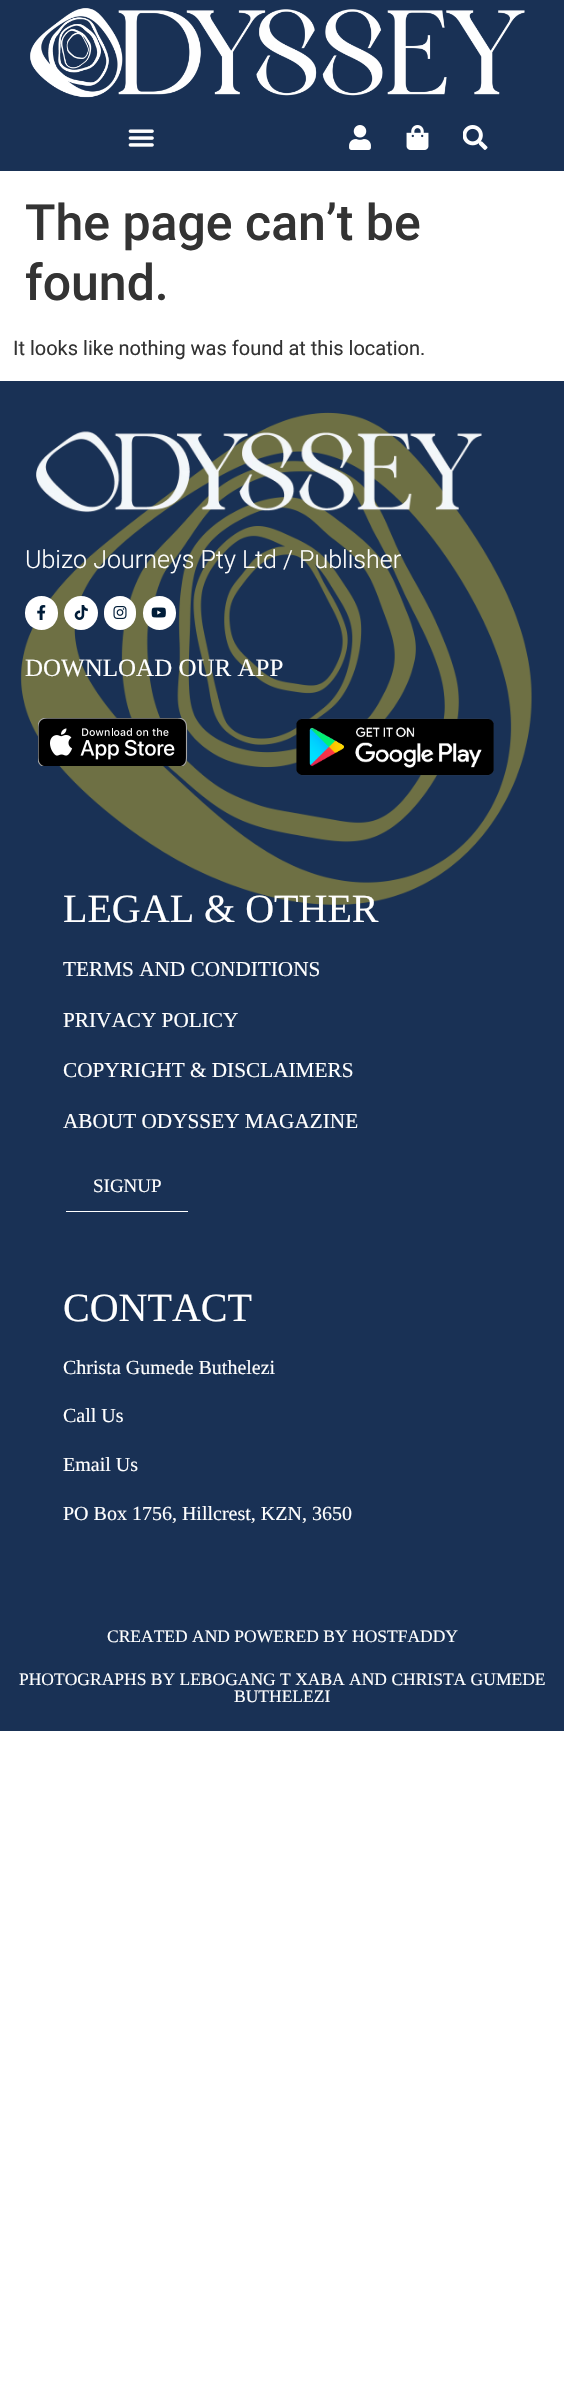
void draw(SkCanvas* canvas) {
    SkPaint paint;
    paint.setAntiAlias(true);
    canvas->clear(0xFFFFFFFF);
    paint.setColor(0xFF193155);
    canvas->drawRect(SkRect::MakeXYWH(0, 0, 564, 171), paint);
    canvas->drawImageRect(SkImages::DeferredFromEncodedData(SkData::MakeFromFileName("img1.png")), SkRect::MakeXYWH(30, 8, 495, 90), SkSamplingOptions());
    canvas->drawImageRect(SkImages::DeferredFromEncodedData(SkData::MakeFromFileName("img2.png")), SkRect::MakeXYWH(128, 129, 26, 18), SkSamplingOptions());
    canvas->drawImageRect(SkImages::DeferredFromEncodedData(SkData::MakeFromFileName("img3.png")), SkRect::MakeXYWH(349, 125, 22, 25), SkSamplingOptions());
    canvas->drawImageRect(SkImages::DeferredFromEncodedData(SkData::MakeFromFileName("img4.png")), SkRect::MakeXYWH(406, 125, 23, 25), SkSamplingOptions());
    canvas->drawImageRect(SkImages::DeferredFromEncodedData(SkData::MakeFromFileName("img5.png")), SkRect::MakeXYWH(463, 125, 25, 25), SkSamplingOptions());
    SkFont font1(fontMgr->matchFamilyStyle("Roboto", SkFontStyle(500, SkFontStyle::kNormal_Width, SkFontStyle::kUpright_Slant)), 50);
    font1.setSubpixel(true);
    paint.setColor(0xFF333333);
    canvas->drawString("The page can’t be", 25, 240, font1, paint);
    canvas->drawString("found.", 25, 300, font1, paint);
    SkFont font2(fontMgr->matchFamilyStyle("Roboto", SkFontStyle::Normal()), 20);
    font2.setSubpixel(true);
    canvas->drawString("It looks like nothing was found at this location.", 13, 355, font2, paint);
    paint.setColor(0xFF193155);
    canvas->drawRect(SkRect::MakeXYWH(0, 381, 564, 1350), paint);
    canvas->drawImageRect(SkImages::DeferredFromEncodedData(SkData::MakeFromFileName("img6.png")), SkRect::MakeXYWH(20, 412, 512, 493), SkSamplingOptions());
    canvas->drawImageRect(SkImages::DeferredFromEncodedData(SkData::MakeFromFileName("img7.png")), SkRect::MakeXYWH(36, 431, 446, 82), SkSamplingOptions());
    SkFont font3(fontMgr->matchFamilyStyle("Roboto", SkFontStyle(300, SkFontStyle::kNormal_Width, SkFontStyle::kUpright_Slant)), 25);
    font3.setSubpixel(true);
    paint.setColor(0xFFFFFFFF);
    canvas->drawString("Ubizo Journeys Pty Ltd / Publisher", 25, 568, font3, paint);
    canvas->drawRoundRect(SkRect::MakeXYWH(25, 596, 33, 34), 16.5f, 16.5f, paint);
    canvas->drawImageRect(SkImages::DeferredFromEncodedData(SkData::MakeFromFileName("img8.png")), SkRect::MakeXYWH(37, 605, 9, 15), SkSamplingOptions());
    canvas->drawCircle(81, 613, 17, paint);
    canvas->drawImageRect(SkImages::DeferredFromEncodedData(SkData::MakeFromFileName("img9.png")), SkRect::MakeXYWH(74, 605, 14, 15), SkSamplingOptions());
    canvas->drawRoundRect(SkRect::MakeXYWH(104, 596, 32, 34), 16, 16, paint);
    canvas->drawImageRect(SkImages::DeferredFromEncodedData(SkData::MakeFromFileName("img10.png")), SkRect::MakeXYWH(113, 606, 14, 13), SkSamplingOptions());
    canvas->drawRoundRect(SkRect::MakeXYWH(143, 596, 33, 34), 16.5f, 16.5f, paint);
    canvas->drawImageRect(SkImages::DeferredFromEncodedData(SkData::MakeFromFileName("img11.png")), SkRect::MakeXYWH(151, 607, 15, 11), SkSamplingOptions());
    SkFont font4(fontMgr->matchFamilyStyle("Liberation Serif", SkFontStyle::Normal()), 25);
    font4.setSubpixel(true);
    canvas->drawString("DOWNLOAD OUR APP", 25, 676, font4, paint);
    canvas->drawImageRect(SkImages::DeferredFromEncodedData(SkData::MakeFromFileName("img12.png")), SkRect::MakeXYWH(38, 718, 150, 48), SkSamplingOptions());
    canvas->drawImageRect(SkImages::DeferredFromEncodedData(SkData::MakeFromFileName("img13.png")), SkRect::MakeXYWH(296, 718, 198, 58), SkSamplingOptions());
    SkFont font5(fontMgr->matchFamilyStyle("Liberation Serif", SkFontStyle::Normal()), 40);
    font5.setSubpixel(true);
    canvas->drawString("LEGAL & OTHER", 63, 922, font5, paint);
    SkFont font6(fontMgr->matchFamilyStyle("Liberation Serif", SkFontStyle::Normal()), 21.25f);
    font6.setSubpixel(true);
    canvas->drawString("TERMS AND CONDITIONS", 63, 976, font6, paint);
    canvas->drawString("PRIVACY POLICY", 63, 1027, font6, paint);
    canvas->drawString("COPYRIGHT & DISCLAIMERS", 63, 1077, font6, paint);
    canvas->drawString("ABOUT ODYSSEY MAGAZINE", 63, 1128, font6, paint);
    canvas->drawRect(SkRect::MakeXYWH(66, 1211, 122, 1), paint);
    SkFont font7(fontMgr->matchFamilyStyle("Liberation Serif", SkFontStyle::Normal()), 19);
    font7.setSubpixel(true);
    canvas->drawString("SIGNUP", 93, 1192, font7, paint);
    canvas->drawString("CONTACT", 63, 1321, font5, paint);
    SkFont font8(fontMgr->matchFamilyStyle("Liberation Serif", SkFontStyle::Normal()), 20);
    font8.setSubpixel(true);
    canvas->drawString("Christa Gumede Buthelezi", 63, 1374, font8, paint);
    canvas->drawString("Call Us", 63, 1422, font8, paint);
    canvas->drawString("Email Us", 63, 1471, font8, paint);
    canvas->drawString("PO Box 1756, Hillcrest, KZN, 3650", 63, 1520, font8, paint);
    SkFont font9(fontMgr->matchFamilyStyle("Liberation Serif", SkFontStyle::Normal()), 17.5f);
    font9.setSubpixel(true);
    canvas->drawString("CREATED AND POWERED BY HOSTFADDY", 107, 1642, font9, paint);
    canvas->drawString("PHOTOGRAPHS BY LEBOGANG T XABA AND CHRISTA GUMEDE", 19, 1685, font9, paint);
    canvas->drawString("BUTHELEZI", 234, 1702, font9, paint);
}
